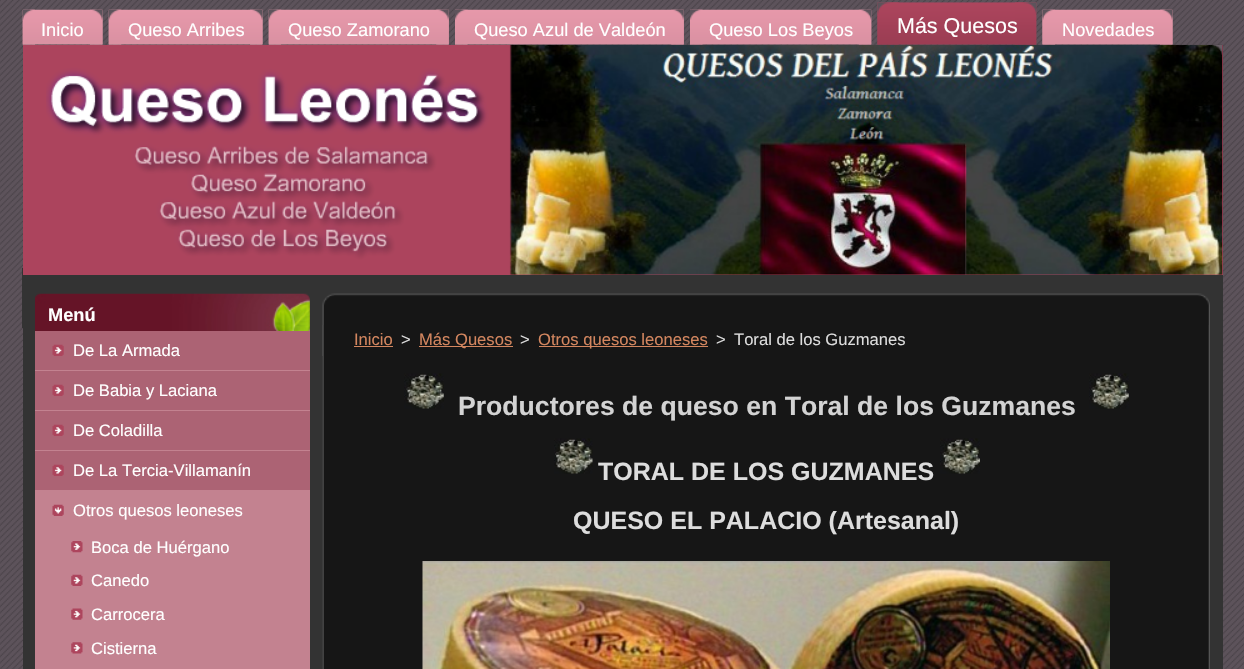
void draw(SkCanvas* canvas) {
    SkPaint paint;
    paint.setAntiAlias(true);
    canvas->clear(0xFFFFFFFF);
    canvas->drawImageRect(SkImages::DeferredFromEncodedData(SkData::MakeFromFileName("img1.png")), SkRect::MakeXYWH(0, 0, 1244, 669), SkSamplingOptions());
    paint.setColor(0xFF333333);
    canvas->drawRect(SkRect::MakeXYWH(22, 268, 1, 60), paint);
    canvas->drawImageRect(SkImages::DeferredFromEncodedData(SkData::MakeFromFileName("img2.png")), SkRect::MakeXYWH(22, 9, 81, 36), SkSamplingOptions());
    canvas->drawImageRect(SkImages::DeferredFromEncodedData(SkData::MakeFromFileName("img3.png")), SkRect::MakeXYWH(22, 9, 13, 36), SkSamplingOptions());
    canvas->drawImageRect(SkImages::DeferredFromEncodedData(SkData::MakeFromFileName("img4.png")), SkRect::MakeXYWH(90, 9, 13, 36), SkSamplingOptions());
    SkFont font1(fontMgr->matchFamilyStyle("Liberation Sans", SkFontStyle::Normal()), 18.25f);
    font1.setSubpixel(true);
    paint.setColor(0xFFFFFFFF);
    canvas->drawString("Inicio", 41, 36, font1, paint);
    canvas->drawImageRect(SkImages::DeferredFromEncodedData(SkData::MakeFromFileName("img5.png")), SkRect::MakeXYWH(108, 9, 155, 36), SkSamplingOptions());
    canvas->drawImageRect(SkImages::DeferredFromEncodedData(SkData::MakeFromFileName("img6.png")), SkRect::MakeXYWH(108, 9, 14, 36), SkSamplingOptions());
    canvas->drawImageRect(SkImages::DeferredFromEncodedData(SkData::MakeFromFileName("img7.png")), SkRect::MakeXYWH(250, 9, 13, 36), SkSamplingOptions());
    canvas->drawString("Queso Arribes", 128, 36, font1, paint);
    canvas->drawImageRect(SkImages::DeferredFromEncodedData(SkData::MakeFromFileName("img8.png")), SkRect::MakeXYWH(268, 9, 181, 36), SkSamplingOptions());
    canvas->drawImageRect(SkImages::DeferredFromEncodedData(SkData::MakeFromFileName("img9.png")), SkRect::MakeXYWH(268, 9, 14, 36), SkSamplingOptions());
    canvas->drawImageRect(SkImages::DeferredFromEncodedData(SkData::MakeFromFileName("img10.png")), SkRect::MakeXYWH(436, 9, 13, 36), SkSamplingOptions());
    canvas->drawString("Queso Zamorano", 288, 36, font1, paint);
    canvas->drawImageRect(SkImages::DeferredFromEncodedData(SkData::MakeFromFileName("img11.png")), SkRect::MakeXYWH(455, 9, 229, 36), SkSamplingOptions());
    canvas->drawImageRect(SkImages::DeferredFromEncodedData(SkData::MakeFromFileName("img12.png")), SkRect::MakeXYWH(455, 9, 13, 36), SkSamplingOptions());
    canvas->drawImageRect(SkImages::DeferredFromEncodedData(SkData::MakeFromFileName("img13.png")), SkRect::MakeXYWH(671, 9, 13, 36), SkSamplingOptions());
    canvas->drawString("Queso Azul de Valdeón", 474, 36, font1, paint);
    canvas->drawImageRect(SkImages::DeferredFromEncodedData(SkData::MakeFromFileName("img14.png")), SkRect::MakeXYWH(690, 9, 182, 36), SkSamplingOptions());
    canvas->drawImageRect(SkImages::DeferredFromEncodedData(SkData::MakeFromFileName("img15.png")), SkRect::MakeXYWH(690, 9, 13, 36), SkSamplingOptions());
    canvas->drawImageRect(SkImages::DeferredFromEncodedData(SkData::MakeFromFileName("img16.png")), SkRect::MakeXYWH(858, 9, 14, 36), SkSamplingOptions());
    canvas->drawString("Queso Los Beyos", 709, 36, font1, paint);
    canvas->drawImageRect(SkImages::DeferredFromEncodedData(SkData::MakeFromFileName("img17.png")), SkRect::MakeXYWH(877, 2, 160, 43), SkSamplingOptions());
    canvas->drawImageRect(SkImages::DeferredFromEncodedData(SkData::MakeFromFileName("img18.png")), SkRect::MakeXYWH(877, 2, 22, 43), SkSamplingOptions());
    canvas->drawImageRect(SkImages::DeferredFromEncodedData(SkData::MakeFromFileName("img19.png")), SkRect::MakeXYWH(1015, 2, 22, 43), SkSamplingOptions());
    SkFont font2(fontMgr->matchFamilyStyle("Liberation Sans", SkFontStyle::Normal()), 21.5f);
    font2.setSubpixel(true);
    canvas->drawString("Más Quesos", 897, 33, font2, paint);
    canvas->drawImageRect(SkImages::DeferredFromEncodedData(SkData::MakeFromFileName("img20.png")), SkRect::MakeXYWH(1042, 9, 131, 36), SkSamplingOptions());
    canvas->drawImageRect(SkImages::DeferredFromEncodedData(SkData::MakeFromFileName("img21.png")), SkRect::MakeXYWH(1042, 9, 13, 36), SkSamplingOptions());
    canvas->drawImageRect(SkImages::DeferredFromEncodedData(SkData::MakeFromFileName("img22.png")), SkRect::MakeXYWH(1160, 9, 13, 36), SkSamplingOptions());
    canvas->drawString("Novedades", 1062, 36, font1, paint);
    paint.setColor(0xFFAC445D);
    canvas->drawRect(SkRect::MakeXYWH(23, 45, 1200, 230), paint);
    canvas->drawImageRect(SkImages::DeferredFromEncodedData(SkData::MakeFromFileName("img23.png")), SkRect::MakeXYWH(46, 44, 1177, 231), SkSamplingOptions());
    canvas->drawImageRect(SkImages::DeferredFromEncodedData(SkData::MakeFromFileName("img24.png")), SkRect::MakeXYWH(1212, 45, 11, 10), SkSamplingOptions());
    paint.setColor(0xFF333333);
    canvas->drawRect(SkRect::MakeXYWH(23, 275, 1200, 394), paint);
    canvas->drawImageRect(SkImages::DeferredFromEncodedData(SkData::MakeFromFileName("img25.png")), SkRect::MakeXYWH(35, 293, 275, 38), SkSamplingOptions());
    SkFont font3(fontMgr->matchFamilyStyle("Liberation Sans", SkFontStyle::Bold()), 18.25f);
    font3.setSubpixel(true);
    paint.setColor(0xFFFFFFFF);
    canvas->drawString("Menú", 48, 321, font3, paint);
    paint.setColor(0xFFAC6374);
    canvas->drawRect(SkRect::MakeXYWH(35, 331, 275, 159), paint);
    canvas->drawImageRect(SkImages::DeferredFromEncodedData(SkData::MakeFromFileName("img26.png")), SkRect::MakeXYWH(52, 344, 12, 12), SkSamplingOptions());
    paint.setColor(0xFFC38290);
    canvas->drawRect(SkRect::MakeXYWH(35, 370, 275, 1), paint);
    SkFont font4(fontMgr->matchFamilyStyle("Liberation Sans", SkFontStyle::Normal()), 16.6f);
    font4.setSubpixel(true);
    paint.setColor(0xFFFFFFFF);
    canvas->drawString("De La Armada", 73, 356, font4, paint);
    canvas->drawImageRect(SkImages::DeferredFromEncodedData(SkData::MakeFromFileName("img26.png")), SkRect::MakeXYWH(52, 384, 12, 12), SkSamplingOptions());
    paint.setColor(0xFFC38290);
    canvas->drawRect(SkRect::MakeXYWH(35, 410, 275, 1), paint);
    paint.setColor(0xFFFFFFFF);
    canvas->drawString("De Babia y Laciana", 73, 396, font4, paint);
    canvas->drawImageRect(SkImages::DeferredFromEncodedData(SkData::MakeFromFileName("img26.png")), SkRect::MakeXYWH(52, 424, 12, 12), SkSamplingOptions());
    paint.setColor(0xFFC38290);
    canvas->drawRect(SkRect::MakeXYWH(35, 450, 275, 1), paint);
    paint.setColor(0xFFFFFFFF);
    canvas->drawString("De Coladilla", 73, 436, font4, paint);
    canvas->drawImageRect(SkImages::DeferredFromEncodedData(SkData::MakeFromFileName("img26.png")), SkRect::MakeXYWH(52, 464, 12, 12), SkSamplingOptions());
    paint.setColor(0xFFC38290);
    canvas->drawRect(SkRect::MakeXYWH(35, 490, 275, 179), paint);
    paint.setColor(0xFFFFFFFF);
    canvas->drawString("De La Tercia-Villamanín", 73, 476, font4, paint);
    canvas->drawImageRect(SkImages::DeferredFromEncodedData(SkData::MakeFromFileName("img27.png")), SkRect::MakeXYWH(52, 504, 12, 12), SkSamplingOptions());
    canvas->drawString("Otros quesos leoneses", 73, 516, font4, paint);
    canvas->drawImageRect(SkImages::DeferredFromEncodedData(SkData::MakeFromFileName("img28.png")), SkRect::MakeXYWH(71, 541, 12, 12), SkSamplingOptions());
    canvas->drawString("Boca de Huérgano", 91, 553, font4, paint);
    canvas->drawImageRect(SkImages::DeferredFromEncodedData(SkData::MakeFromFileName("img29.png")), SkRect::MakeXYWH(71, 574, 12, 12), SkSamplingOptions());
    canvas->drawString("Canedo", 91, 586, font4, paint);
    canvas->drawImageRect(SkImages::DeferredFromEncodedData(SkData::MakeFromFileName("img30.png")), SkRect::MakeXYWH(71, 608, 12, 12), SkSamplingOptions());
    canvas->drawString("Carrocera", 91, 620, font4, paint);
    canvas->drawImageRect(SkImages::DeferredFromEncodedData(SkData::MakeFromFileName("img31.png")), SkRect::MakeXYWH(71, 642, 12, 12), SkSamplingOptions());
    canvas->drawString("Cistierna", 91, 654, font4, paint);
    canvas->drawImageRect(SkImages::DeferredFromEncodedData(SkData::MakeFromFileName("img32.png")), SkRect::MakeXYWH(322, 293, 888, 63), SkSamplingOptions());
    canvas->drawImageRect(SkImages::DeferredFromEncodedData(SkData::MakeFromFileName("img33.png")), SkRect::MakeXYWH(322, 325, 888, 344), SkSamplingOptions());
    paint.setColor(0xFFD3865F);
    canvas->drawString("Inicio", 354, 345, font4, paint);
    canvas->drawRect(SkRect::MakeXYWH(354, 346, 39, 1), paint);
    paint.setColor(0xFFDDDDDD);
    canvas->drawString(">", 401, 345, font4, paint);
    paint.setColor(0xFFD3865F);
    canvas->drawRect(SkRect::MakeXYWH(419, 346, 94, 1), paint);
    canvas->drawString("Más Quesos", 419, 345, font4, paint);
    paint.setColor(0xFFDDDDDD);
    canvas->drawString(">", 520, 345, font4, paint);
    paint.setColor(0xFFD3865F);
    canvas->drawRect(SkRect::MakeXYWH(539, 346, 169, 1), paint);
    canvas->drawString("Otros quesos leoneses", 538, 345, font4, paint);
    paint.setColor(0xFFDDDDDD);
    canvas->drawString(">", 716, 345, font4, paint);
    canvas->drawString("Toral de los Guzmanes", 734, 345, font4, paint);
    canvas->drawImageRect(SkImages::DeferredFromEncodedData(SkData::MakeFromFileName("img34.png")), SkRect::MakeXYWH(404, 373, 40, 36), SkSamplingOptions());
    SkFont font5(fontMgr->matchFamilyStyle("Liberation Sans", SkFontStyle::Bold()), 26.6f);
    font5.setSubpixel(true);
    paint.setColor(0xFFD3D3D3);
    canvas->drawString("Productores de queso en Toral de los Guzmanes", 458, 415, font5, paint);
    canvas->drawImageRect(SkImages::DeferredFromEncodedData(SkData::MakeFromFileName("img34.png")), SkRect::MakeXYWH(1089, 373, 40, 36), SkSamplingOptions());
    canvas->drawImageRect(SkImages::DeferredFromEncodedData(SkData::MakeFromFileName("img35.png")), SkRect::MakeXYWH(554, 438, 39, 36), SkSamplingOptions());
    SkFont font6(fontMgr->matchFamilyStyle("Liberation Sans", SkFontStyle::Bold()), 25);
    font6.setSubpixel(true);
    paint.setColor(0xFFDDDDDD);
    canvas->drawString("TORAL DE LOS GUZMANES", 598, 480, font6, paint);
    canvas->drawImageRect(SkImages::DeferredFromEncodedData(SkData::MakeFromFileName("img36.png")), SkRect::MakeXYWH(940, 438, 40, 36), SkSamplingOptions());
    canvas->drawString("QUESO EL PALACIO (Artesanal)", 573, 529, font6, paint);
    canvas->drawImageRect(SkImages::DeferredFromEncodedData(SkData::MakeFromFileName("img37.png")), SkRect::MakeXYWH(422, 561, 688, 108), SkSamplingOptions());
}
